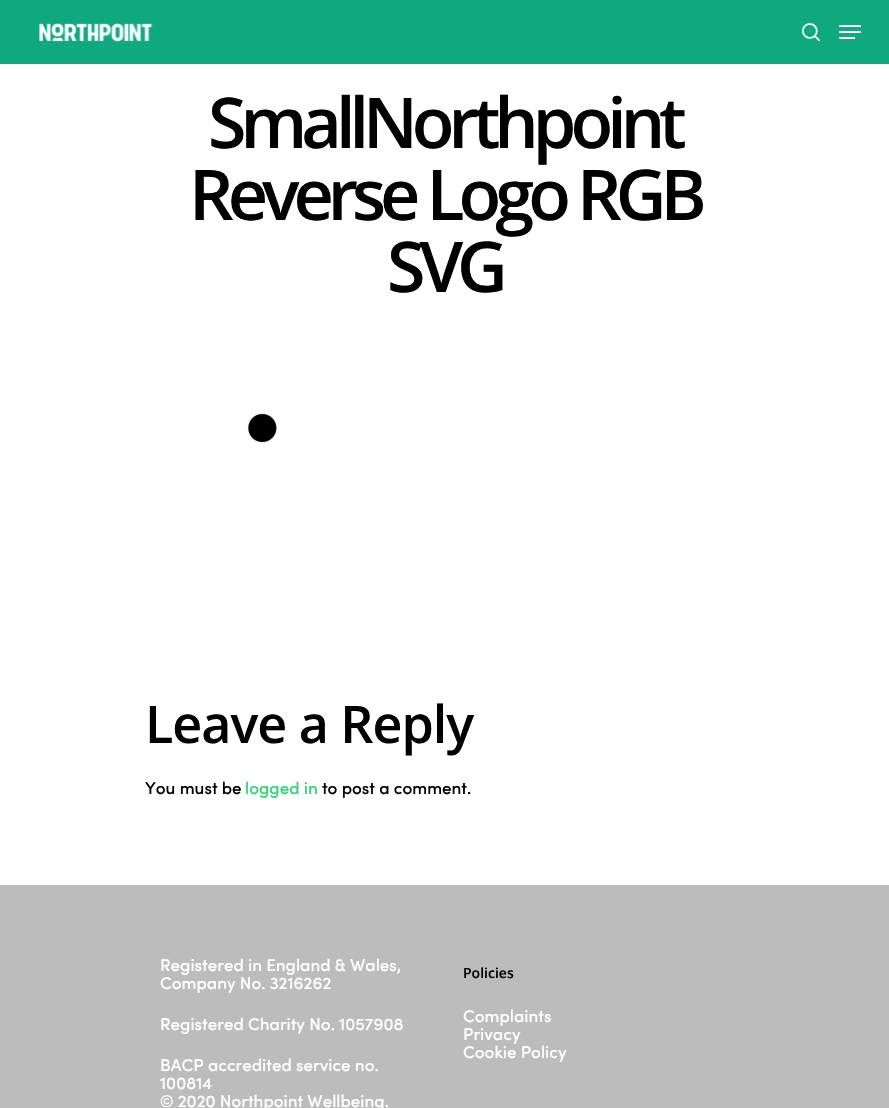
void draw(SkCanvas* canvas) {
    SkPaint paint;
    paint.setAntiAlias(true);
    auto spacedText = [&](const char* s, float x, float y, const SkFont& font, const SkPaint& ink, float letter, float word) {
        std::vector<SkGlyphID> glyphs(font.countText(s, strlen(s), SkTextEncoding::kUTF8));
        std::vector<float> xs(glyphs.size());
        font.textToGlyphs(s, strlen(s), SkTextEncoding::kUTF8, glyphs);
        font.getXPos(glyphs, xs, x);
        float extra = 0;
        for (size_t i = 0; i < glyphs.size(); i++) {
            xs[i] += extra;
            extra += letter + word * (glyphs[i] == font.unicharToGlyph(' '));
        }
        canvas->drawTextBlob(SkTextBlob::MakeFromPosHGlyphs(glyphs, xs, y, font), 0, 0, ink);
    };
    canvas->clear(0xFFFFFFFF);
    paint.setColor(0xFF0FA980);
    canvas->drawRect(SkRect::MakeXYWH(0, 0, 889, 64), paint);
    canvas->drawImageRect(SkImages::DeferredFromEncodedData(SkData::MakeFromFileName("img1.png")), SkRect::MakeXYWH(39, 23, 114, 19), SkSamplingOptions());
    canvas->drawImageRect(SkImages::DeferredFromEncodedData(SkData::MakeFromFileName("img2.png")), SkRect::MakeXYWH(802, 23, 18, 19), SkSamplingOptions());
    paint.setColor(0xFFFFFFFF);
    canvas->drawRect(SkRect::MakeXYWH(839, 25, 22, 2), paint);
    canvas->drawRect(SkRect::MakeXYWH(839, 37, 16, 2), paint);
    canvas->drawRect(SkRect::MakeXYWH(839, 31, 22, 2), paint);
    SkFont font1(fontMgr->matchFamilyStyle("Open Sans", SkFontStyle(600, SkFontStyle::kNormal_Width, SkFontStyle::kUpright_Slant)), 70);
    font1.setSubpixel(true);
    paint.setColor(0xFF000000);
    spacedText("SmallNorthpoint", 208, 148, font1, paint, -6, 0);
    spacedText("Reverse Logo RGB", 189, 220, font1, paint, -6, 0);
    spacedText("SVG", 387, 292, font1, paint, -6, 0);
    canvas->drawImageRect(SkImages::DeferredFromEncodedData(SkData::MakeFromFileName("img3.png")), SkRect::MakeXYWH(247, 413, 30, 30), SkSamplingOptions());
    SkFont font2(fontMgr->matchFamilyStyle("Open Sans", SkFontStyle(600, SkFontStyle::kNormal_Width, SkFontStyle::kUpright_Slant)), 52);
    font2.setSubpixel(true);
    spacedText("Leave a Reply", 145, 743, font2, paint, -1, 0);
    SkFont font3(fontMgr->matchFamilyStyle("Sofia", SkFontStyle(500, SkFontStyle::kNormal_Width, SkFontStyle::kUpright_Slant)), 17);
    font3.setSubpixel(true);
    canvas->drawString("You must be", 145, 794, font3, paint);
    paint.setColor(0xFF30D673);
    canvas->drawString("logged in", 245, 794, font3, paint);
    paint.setColor(0xFF000000);
    canvas->drawString("to post a comment.", 322, 794, font3, paint);
    paint.setColor(0xFFBCBCBC);
    canvas->drawRect(SkRect::MakeXYWH(0, 885, 889, 223), paint);
    paint.setColor(0xFFFFFFFF);
    canvas->drawString("Registered in England & Wales,", 160, 971, font3, paint);
    canvas->drawString("Company No. 3216262", 160, 989, font3, paint);
    canvas->drawString("Registered Charity No. 1057908", 160, 1030, font3, paint);
    canvas->drawString("BACP accredited service no.", 160, 1071, font3, paint);
    canvas->drawString("100814", 160, 1089, font3, paint);
    canvas->drawString("© 2020 Northpoint Wellbeing.", 160, 1107, font3, paint);
    SkFont font4(fontMgr->matchFamilyStyle("Open Sans", SkFontStyle(600, SkFontStyle::kNormal_Width, SkFontStyle::kUpright_Slant)), 14);
    font4.setSubpixel(true);
    paint.setColor(0xFF000000);
    canvas->drawString("Policies", 463, 978, font4, paint);
    paint.setColor(0xFFFFFFFF);
    canvas->drawString("Complaints", 463, 1022, font3, paint);
    canvas->drawString("Privacy", 463, 1040, font3, paint);
    canvas->drawString("Cookie Policy", 463, 1058, font3, paint);
}
